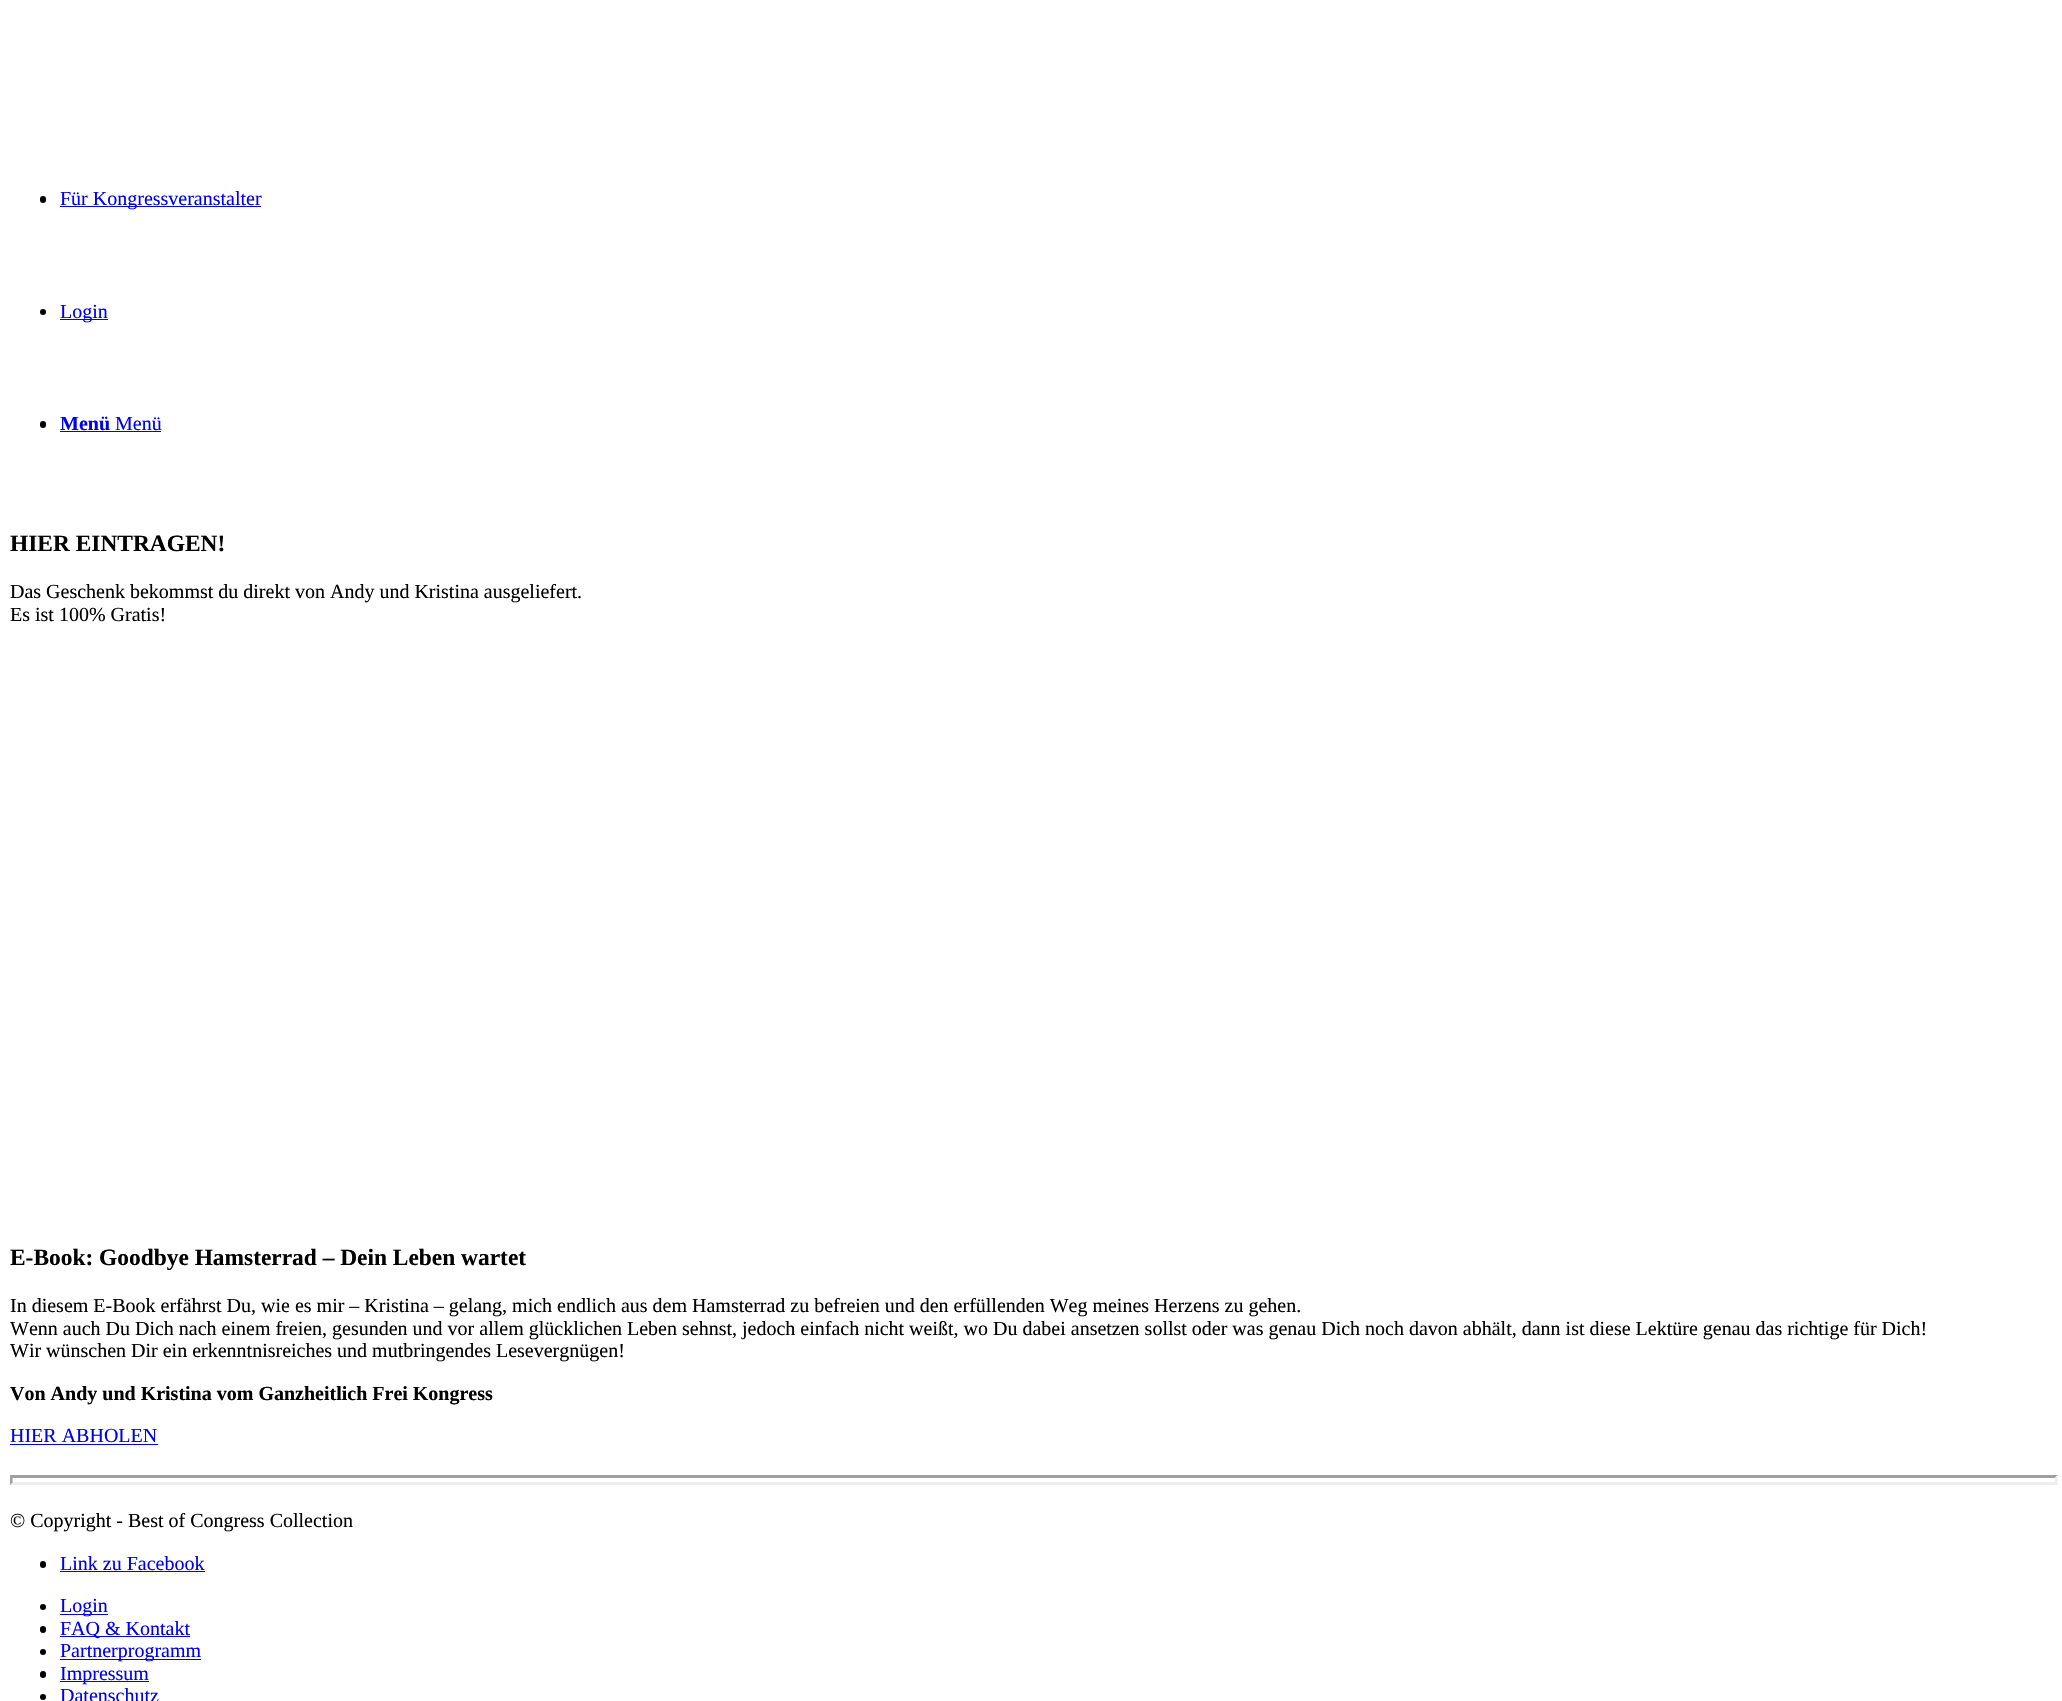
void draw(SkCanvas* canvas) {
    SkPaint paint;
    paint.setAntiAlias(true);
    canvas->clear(0xFFFFFFFF);
    paint.setColor(0xFF000000);
    canvas->drawRoundRect(SkRect::MakeXYWH(40, 196, 6, 7), 3, 3, paint);
    paint.setColor(0xFF0000EE);
    canvas->drawRect(SkRect::MakeXYWH(60, 206, 201, 1), paint);
    SkFont font1(fontMgr->matchFamilyStyle("Liberation Serif", SkFontStyle::Normal()), 20);
    font1.setSubpixel(true);
    canvas->drawString("Für Kongressveranstalter", 60, 205, font1, paint);
    paint.setColor(0xFF000000);
    canvas->drawCircle(43, 312, 3, paint);
    paint.setColor(0xFF0000EE);
    canvas->drawRect(SkRect::MakeXYWH(60, 319, 48, 1), paint);
    canvas->drawString("Login", 60, 318, font1, paint);
    paint.setColor(0xFF000000);
    canvas->drawRoundRect(SkRect::MakeXYWH(40, 421, 6, 7), 3, 3, paint);
    SkFont font2(fontMgr->matchFamilyStyle("Liberation Serif", SkFontStyle::Bold()), 20);
    font2.setSubpixel(true);
    paint.setColor(0xFF0000EE);
    canvas->drawString("Menü", 60, 430, font2, paint);
    canvas->drawRect(SkRect::MakeXYWH(60, 431, 101, 1), paint);
    canvas->drawString("Menü", 115, 430, font1, paint);
    SkFont font3(fontMgr->matchFamilyStyle("Liberation Serif", SkFontStyle::Bold()), 23.4f);
    font3.setSubpixel(true);
    paint.setColor(0xFF000000);
    canvas->drawString("HIER EINTRAGEN!", 10, 551, font3, paint);
    canvas->drawString("Das Geschenk bekommst du direkt von Andy und Kristina ausgeliefert.", 10, 598, font1, paint);
    canvas->drawString("Es ist 100% Gratis!", 10, 621, font1, paint);
    canvas->drawString("E-Book: Goodbye Hamsterrad – Dein Leben wartet", 10, 1265, font3, paint);
    canvas->drawString("In diesem E-Book erfährst Du, wie es mir – Kristina – gelang, mich endlich aus dem Hamsterrad zu befreien und den erfüllenden Weg meines Herzens zu gehen.", 10, 1312, font1, paint);
    canvas->drawString("Wenn auch Du Dich nach einem freien, gesunden und vor allem glücklichen Leben sehnst, jedoch einfach nicht weißt, wo Du dabei ansetzen sollst oder was genau Dich noch davon abhält, dann ist diese Lektüre genau das richtige für Dich!", 10, 1335, font1, paint);
    canvas->drawString("Wir wünschen Dir ein erkenntnisreiches und mutbringendes Lesevergnügen!", 10, 1357, font1, paint);
    canvas->drawString("Von Andy und Kristina vom Ganzheitlich Frei Kongress", 10, 1400, font2, paint);
    paint.setColor(0xFF0000EE);
    canvas->drawString("HIER ABHOLEN", 10, 1442, font1, paint);
    canvas->drawRect(SkRect::MakeXYWH(10, 1444, 148, 1), paint);
    paint.setColor(0xFF9F9F9F);
    canvas->drawPath(SkPathBuilder().moveTo(10, 1475).lineTo(2058, 1475).lineTo(2055, 1478).lineTo(12, 1478).close().detach(), paint);
    paint.setColor(0xFFEEEEEE);
    canvas->drawPath(SkPathBuilder().moveTo(2057.5f, 1475).lineTo(2057.5f, 1485).lineTo(2055, 1482.5f).lineTo(2055, 1477.5f).close().detach(), paint);
    canvas->drawPath(SkPathBuilder().moveTo(2058, 1485).lineTo(10, 1485).lineTo(12, 1482).lineTo(2055, 1482).close().detach(), paint);
    paint.setColor(0xFF9F9F9F);
    canvas->drawPath(SkPathBuilder().moveTo(10, 1485).lineTo(10, 1475).lineTo(12.5f, 1477.5f).lineTo(12.5f, 1482.5f).close().detach(), paint);
    paint.setColor(0xFF000000);
    canvas->drawString("© Copyright - Best of Congress Collection", 10, 1527, font1, paint);
    canvas->drawRoundRect(SkRect::MakeXYWH(40, 1561, 6, 7), 3, 3, paint);
    paint.setColor(0xFF0000EE);
    canvas->drawString("Link zu Facebook", 60, 1570, font1, paint);
    canvas->drawRect(SkRect::MakeXYWH(60, 1571, 145, 1), paint);
    paint.setColor(0xFF000000);
    canvas->drawCircle(43, 1607, 3, paint);
    paint.setColor(0xFF0000EE);
    canvas->drawRect(SkRect::MakeXYWH(60, 1614, 48, 1), paint);
    canvas->drawString("Login", 60, 1612, font1, paint);
    paint.setColor(0xFF000000);
    canvas->drawRoundRect(SkRect::MakeXYWH(40, 1626, 6, 7), 3, 3, paint);
    paint.setColor(0xFF0000EE);
    canvas->drawRect(SkRect::MakeXYWH(60, 1636, 130, 1), paint);
    canvas->drawString("FAQ & Kontakt", 60, 1635, font1, paint);
    paint.setColor(0xFF000000);
    canvas->drawCircle(43, 1652, 3, paint);
    paint.setColor(0xFF0000EE);
    canvas->drawRect(SkRect::MakeXYWH(60, 1659, 141, 1), paint);
    canvas->drawString("Partnerprogramm", 60, 1657, font1, paint);
    paint.setColor(0xFF000000);
    canvas->drawRoundRect(SkRect::MakeXYWH(40, 1671, 6, 7), 3, 3, paint);
    paint.setColor(0xFF0000EE);
    canvas->drawRect(SkRect::MakeXYWH(60, 1681, 89, 1), paint);
    canvas->drawString("Impressum", 60, 1680, font1, paint);
    paint.setColor(0xFF000000);
    canvas->drawCircle(43, 1697, 3, paint);
    paint.setColor(0xFF0000EE);
    canvas->drawString("Datenschutz", 60, 1702, font1, paint);
}
